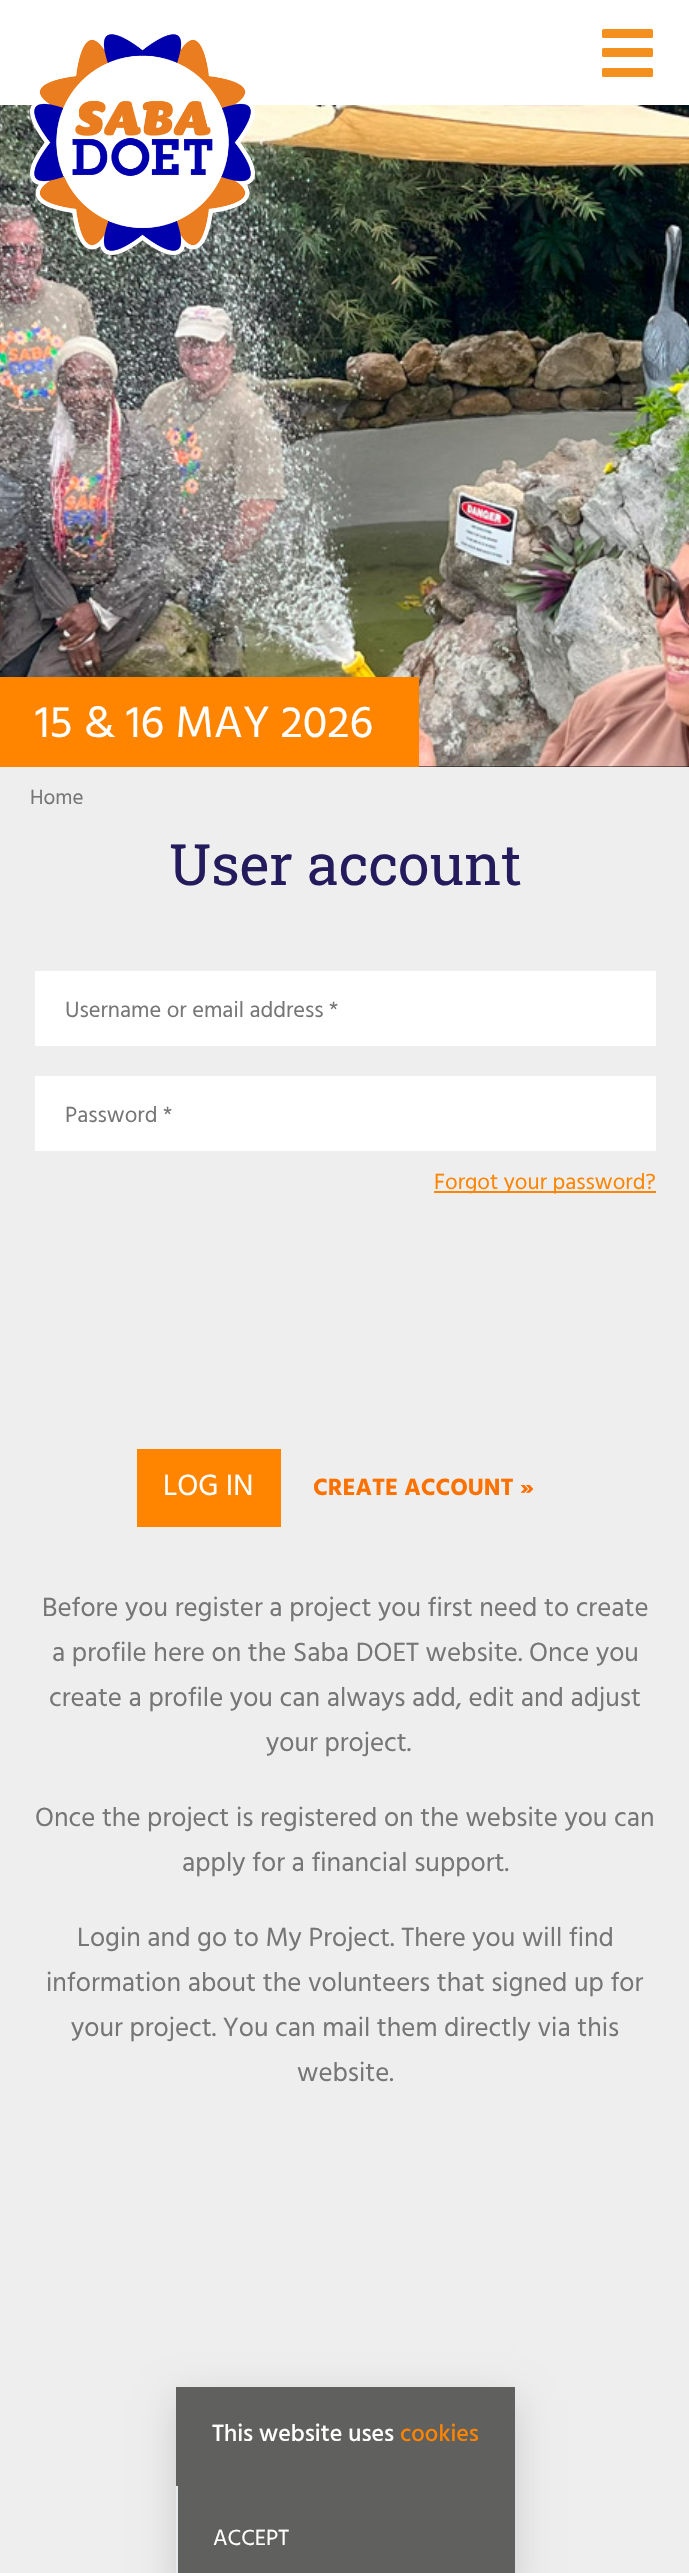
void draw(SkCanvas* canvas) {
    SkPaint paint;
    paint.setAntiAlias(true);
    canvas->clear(0xFFEEEEEE);
    paint.setColor(0xFFFFFFFF);
    canvas->drawRect(SkRect::MakeXYWH(0, 0, 689, 105), paint);
    paint.setColor(0xFFF4901E);
    canvas->drawRoundRect(SkRect::MakeXYWH(602, 29, 51, 9), 1.5f, 1.5f, paint);
    canvas->drawRoundRect(SkRect::MakeXYWH(602, 48, 51, 9), 1.5f, 1.5f, paint);
    canvas->drawRoundRect(SkRect::MakeXYWH(602, 68, 51, 9), 1.5f, 1.5f, paint);
    paint.setColor(0xFF000000);
    canvas->drawRect(SkRect::MakeXYWH(419, 766, 270, 1), paint);
    canvas->drawImageRect(SkImages::DeferredFromEncodedData(SkData::MakeFromFileName("img2.png")), SkRect::MakeXYWH(0, 105, 689, 662), SkSamplingOptions());
    canvas->drawImageRect(SkImages::DeferredFromEncodedData(SkData::MakeFromFileName("img1.png")), SkRect::MakeXYWH(30, 34, 225, 221), SkSamplingOptions());
    paint.setColor(0xFFFF8400);
    canvas->drawRect(SkRect::MakeXYWH(0, 677, 419, 90), paint);
    SkFont font1(fontMgr->matchFamilyStyle("Hind", SkFontStyle::Normal()), 45);
    font1.setSubpixel(true);
    paint.setColor(0xFFFFFFFF);
    canvas->drawString("15 & 16 MAY 2026", 35, 737, font1, paint);
    SkFont font2(fontMgr->matchFamilyStyle("Hind", SkFontStyle::Normal()), 21);
    font2.setSubpixel(true);
    paint.setColor(0xFF767676);
    canvas->drawString("Home", 30, 804, font2, paint);
    SkFont font3(fontMgr->matchFamilyStyle("Roboto Slab", SkFontStyle::Normal()), 57);
    font3.setSubpixel(true);
    paint.setColor(0xFF241B5C);
    canvas->drawString("User account", 169, 885, font3, paint);
    paint.setColor(0xFFFFFFFF);
    canvas->drawRect(SkRect::MakeXYWH(35, 971, 621, 75), paint);
    SkFont font4(fontMgr->matchFamilyStyle("Hind", SkFontStyle::Normal()), 22.5f);
    font4.setSubpixel(true);
    paint.setColor(0xFF767676);
    canvas->drawString("Username or email address *", 65, 1017, font4, paint);
    paint.setColor(0xFFFFFFFF);
    canvas->drawRect(SkRect::MakeXYWH(35, 1076, 621, 75), paint);
    paint.setColor(0xFF767676);
    canvas->drawString("Password *", 65, 1122, font4, paint);
    paint.setColor(0xFFFF8400);
    canvas->drawRect(SkRect::MakeXYWH(434, 1191, 222, 2), paint);
    canvas->drawString("Forgot your password?", 434, 1189, font4, paint);
    canvas->drawRect(SkRect::MakeXYWH(137, 1449, 144, 78), paint);
    SkFont font5(fontMgr->matchFamilyStyle("Hind", SkFontStyle::Normal()), 30);
    font5.setSubpixel(true);
    paint.setColor(0xFFFFFFFF);
    canvas->drawString("LOG IN", 163, 1495, font5, paint);
    SkFont font6(fontMgr->matchFamilyStyle("Hind", SkFontStyle::Bold()), 24);
    font6.setSubpixel(true);
    paint.setColor(0xFFFC7100);
    canvas->drawString("CREATE ACCOUNT »", 313, 1495, font6, paint);
    SkFont font7(fontMgr->matchFamilyStyle("Hind", SkFontStyle::Normal()), 27);
    font7.setSubpixel(true);
    paint.setColor(0xFF767676);
    canvas->drawString("Before you register a project you first need to create", 42, 1616, font7, paint);
    canvas->drawString("a profile here on the Saba DOET website. Once you", 52, 1661, font7, paint);
    canvas->drawString("create a profile you can always add, edit and adjust", 49, 1706, font7, paint);
    canvas->drawString("your project.", 266, 1751, font7, paint);
    canvas->drawString("Once the project is registered on the website you can", 35, 1826, font7, paint);
    canvas->drawString("apply for a financial support.", 182, 1871, font7, paint);
    canvas->drawString("Login and go to My Project. There you will find", 77, 1946, font7, paint);
    canvas->drawString("information about the volunteers that signed up for", 46, 1991, font7, paint);
    canvas->drawString("your project. You can mail them directly via this", 71, 2036, font7, paint);
    canvas->drawString("website.", 297, 2081, font7, paint);
    canvas->save();
    canvas->clipPath(SkPathBuilder(SkPathFillType::kEvenOdd).moveTo(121, 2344).lineTo(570, 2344).lineTo(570, 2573).lineTo(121, 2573).close().moveTo(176, 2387).lineTo(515, 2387).lineTo(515, 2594).lineTo(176, 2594).close().detach(), true);
    paint.setColor(0x26000000);
    paint.setMaskFilter(SkMaskFilter::MakeBlur(kNormal_SkBlurStyle, 18));
    canvas->drawRect(SkRect::MakeXYWH(176, 2399, 339, 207), paint);
    paint.setMaskFilter(nullptr);
    canvas->restore();
    paint.setColor(0xCC3C3C3B);
    canvas->drawRect(SkRect::MakeXYWH(176, 2387, 339, 186), paint);
    SkFont font8(fontMgr->matchFamilyStyle("Hind", SkFontStyle(500, SkFontStyle::kNormal_Width, SkFontStyle::kUpright_Slant)), 24);
    font8.setSubpixel(true);
    paint.setColor(0xFFFFFFFF);
    canvas->drawString("This website uses", 212, 2441, font8, paint);
    paint.setColor(0xFFFF8400);
    canvas->drawString("cookies", 400, 2441, font8, paint);
    paint.setColor(0xFFE7EAEC);
    canvas->drawRect(SkRect::MakeXYWH(176, 2486, 2, 87), paint);
    paint.setColor(0xFFFFFFFF);
    canvas->drawString("ACCEPT", 213, 2545, font4, paint);
}
